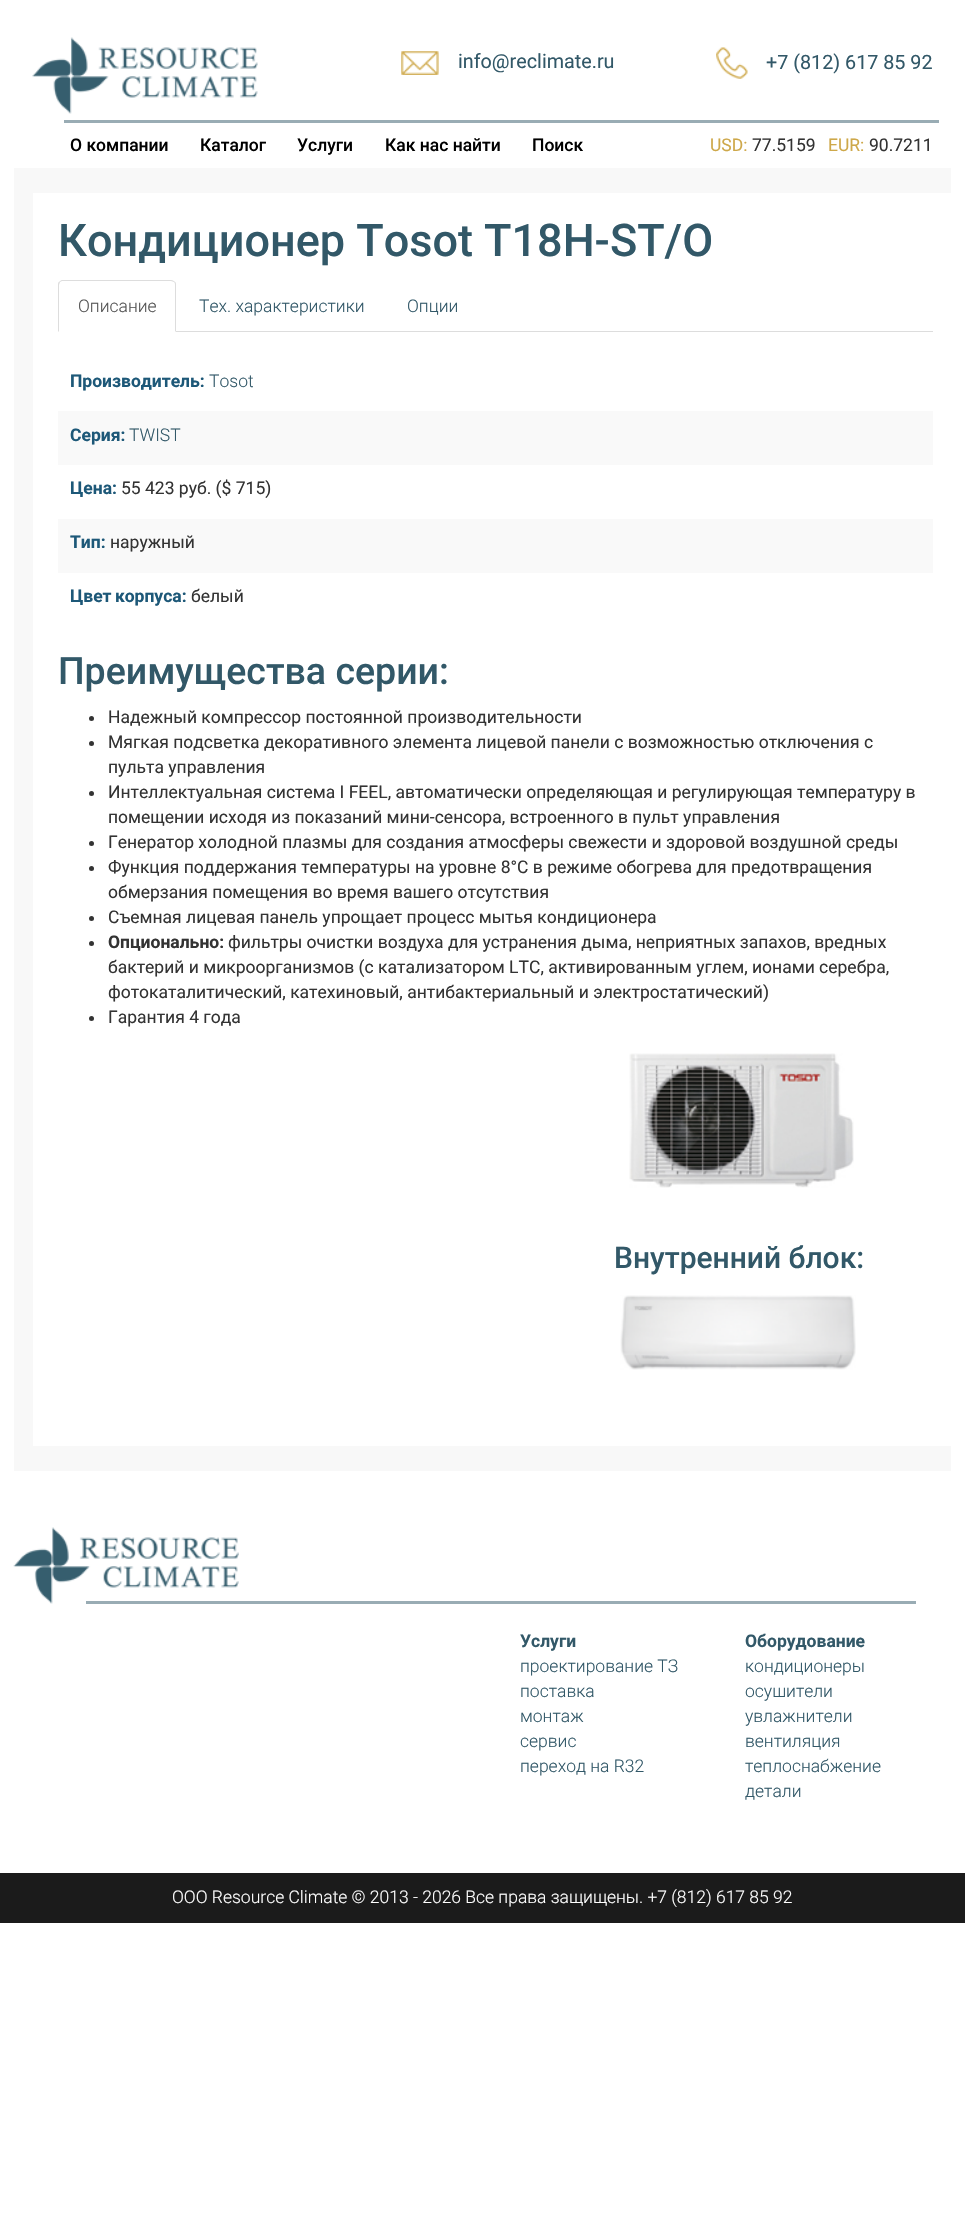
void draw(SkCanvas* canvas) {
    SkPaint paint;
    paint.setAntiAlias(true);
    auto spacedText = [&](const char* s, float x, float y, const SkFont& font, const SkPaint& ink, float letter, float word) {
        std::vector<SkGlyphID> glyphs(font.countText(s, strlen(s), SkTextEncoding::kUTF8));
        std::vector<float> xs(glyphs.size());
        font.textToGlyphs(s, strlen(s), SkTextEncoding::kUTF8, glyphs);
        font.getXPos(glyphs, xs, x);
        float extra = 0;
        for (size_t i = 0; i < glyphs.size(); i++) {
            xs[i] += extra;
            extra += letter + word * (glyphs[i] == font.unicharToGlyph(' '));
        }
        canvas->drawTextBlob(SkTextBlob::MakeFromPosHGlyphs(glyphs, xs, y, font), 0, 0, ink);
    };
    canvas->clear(0xFFFFFFFF);
    canvas->drawImageRect(SkImages::DeferredFromEncodedData(SkData::MakeFromFileName("img1.png")), SkRect::MakeXYWH(32, 37, 226, 77), SkSamplingOptions());
    canvas->drawImageRect(SkImages::DeferredFromEncodedData(SkData::MakeFromFileName("img2.png")), SkRect::MakeXYWH(401, 51, 38, 24), SkSamplingOptions());
    SkFont font1(fontMgr->matchFamilyStyle("Roboto", SkFontStyle::Normal()), 19.75f);
    font1.setSubpixel(true);
    paint.setColor(0xFF325868);
    canvas->drawString("info@reclimate.ru", 458, 68, font1, paint);
    canvas->drawImageRect(SkImages::DeferredFromEncodedData(SkData::MakeFromFileName("img3.png")), SkRect::MakeXYWH(716, 47, 32, 32), SkSamplingOptions());
    canvas->drawString("+7 (812) 617 85 92", 766, 69, font1, paint);
    paint.setColor(0xFF99ACB4);
    canvas->drawRect(SkRect::MakeXYWH(64, 120, 875, 3), paint);
    SkFont font2(fontMgr->matchFamilyStyle("Roboto", SkFontStyle(500, SkFontStyle::kNormal_Width, SkFontStyle::kUpright_Slant)), 17.5f);
    font2.setSubpixel(true);
    paint.setColor(0xFF000000);
    canvas->drawString("О компании", 70, 151, font2, paint);
    canvas->drawString("Каталог", 200, 151, font2, paint);
    canvas->drawString("Услуги", 297, 151, font2, paint);
    canvas->drawString("Как нас найти", 385, 151, font2, paint);
    canvas->drawString("Поиск", 532, 151, font2, paint);
    SkFont font3(fontMgr->matchFamilyStyle("Roboto", SkFontStyle::Normal()), 17.5f);
    font3.setSubpixel(true);
    paint.setColor(0xFFCEA84A);
    canvas->drawString("USD:", 710, 151, font3, paint);
    paint.setColor(0xFF333333);
    canvas->drawString("77.5159", 752, 151, font3, paint);
    paint.setColor(0xFFCEA84A);
    canvas->drawString("EUR:", 828, 151, font3, paint);
    paint.setColor(0xFF333333);
    canvas->drawString("90.7211", 869, 151, font3, paint);
    paint.setColor(0xFFF8F8F8);
    canvas->drawRect(SkRect::MakeXYWH(14, 168, 937, 1303), paint);
    paint.setColor(0xFFFFFFFF);
    canvas->drawRect(SkRect::MakeXYWH(33, 193, 918, 1253), paint);
    SkFont font4(fontMgr->matchFamilyStyle("Roboto", SkFontStyle(500, SkFontStyle::kNormal_Width, SkFontStyle::kUpright_Slant)), 45);
    font4.setSubpixel(true);
    paint.setColor(0xFF325868);
    canvas->drawString("Кондиционер Tosot T18H-ST/O", 58, 256, font4, paint);
    paint.setColor(0xFFDDDDDD);
    canvas->drawRect(SkRect::MakeXYWH(176, 331, 757, 1), paint);
    canvas->drawPath(SkPathBuilder().moveTo(62, 280).cubicTo(61, 280, 60, 281, 59, 282).lineTo(60, 282).lineTo(62, 281).lineTo(171, 281).lineTo(174, 282).lineTo(175, 282).cubicTo(174, 281, 173, 280, 171, 280).close().detach(), paint);
    canvas->drawPath(SkPathBuilder().moveTo(175, 282).cubicTo(176, 282, 176, 284, 176, 285).lineTo(176, 332).lineTo(175, 331).lineTo(175, 285).cubicTo(175, 284, 175, 283, 174, 282).close().detach(), paint);
    canvas->drawPath(SkPathBuilder().moveTo(59, 282).cubicTo(58, 282, 58, 284, 58, 285).lineTo(58, 332).lineTo(59, 331).lineTo(59, 285).lineTo(60, 282).close().detach(), paint);
    SkFont font5(fontMgr->matchFamilyStyle("Roboto", SkFontStyle(300, SkFontStyle::kNormal_Width, SkFontStyle::kUpright_Slant)), 17.5f);
    font5.setSubpixel(true);
    paint.setColor(0xFF555555);
    canvas->drawString("Описание", 78, 312, font5, paint);
    paint.setColor(0xFF325868);
    canvas->drawString("Тех. характеристики", 199, 312, font5, paint);
    canvas->drawString("Опции", 407, 312, font5, paint);
    SkFont font6(fontMgr->matchFamilyStyle("Roboto", SkFontStyle::Bold()), 17.5f);
    font6.setSubpixel(true);
    paint.setColor(0xFF1D5878);
    canvas->drawString("Производитель:", 70, 387, font6, paint);
    paint.setColor(0xFF325868);
    canvas->drawString("Tosot", 209, 387, font5, paint);
    paint.setColor(0xFFF9F9F9);
    canvas->drawRect(SkRect::MakeXYWH(58, 411, 875, 54), paint);
    paint.setColor(0xFF1D5878);
    canvas->drawString("Серия:", 70, 441, font6, paint);
    paint.setColor(0xFF325868);
    canvas->drawString("TWIST", 129, 441, font5, paint);
    paint.setColor(0xFF1D5878);
    canvas->drawString("Цена:", 70, 494, font6, paint);
    paint.setColor(0xFF333333);
    canvas->drawString("55 423 руб. ($ 715)", 121, 494, font3, paint);
    paint.setColor(0xFFF9F9F9);
    canvas->drawRect(SkRect::MakeXYWH(58, 519, 875, 54), paint);
    paint.setColor(0xFF1D5878);
    canvas->drawString("Тип:", 70, 548, font6, paint);
    paint.setColor(0xFF333333);
    canvas->drawString("наружный", 110, 548, font3, paint);
    paint.setColor(0xFF1D5878);
    spacedText("Цвет корпуса:", 70, 602, font6, paint, 0, -1);
    paint.setColor(0xFF333333);
    canvas->drawString("белый", 191, 602, font3, paint);
    SkFont font7(fontMgr->matchFamilyStyle("Roboto", SkFontStyle(500, SkFontStyle::kNormal_Width, SkFontStyle::kUpright_Slant)), 37.5f);
    font7.setSubpixel(true);
    paint.setColor(0xFF325868);
    canvas->drawString("Преимущества серии:", 58, 684, font7, paint);
    paint.setColor(0xFF333333);
    canvas->drawCircle(91.5f, 718.5f, 2.5f, paint);
    canvas->drawString("Надежный компрессор постоянной производительности", 108, 723, font3, paint);
    canvas->drawCircle(91.5f, 743.5f, 2.5f, paint);
    canvas->drawString("Мягкая подсветка декоративного элемента лицевой панели с возможностью отключения с", 108, 748, font3, paint);
    canvas->drawString("пульта управления", 108, 773, font3, paint);
    canvas->drawCircle(91.5f, 793.5f, 2.5f, paint);
    canvas->drawString("Интеллектуальная система I FEEL, автоматически определяющая и регулирующая температуру в", 108, 798, font3, paint);
    canvas->drawString("помещении исходя из показаний мини-сенсора, встроенного в пульт управления", 108, 823, font3, paint);
    canvas->drawCircle(91.5f, 843.5f, 2.5f, paint);
    canvas->drawString("Генератор холодной плазмы для создания атмосферы свежести и здоровой воздушной среды", 108, 848, font3, paint);
    canvas->drawCircle(91.5f, 868.5f, 2.5f, paint);
    canvas->drawString("Функция поддержания температуры на уровне 8°С в режиме обогрева для предотвращения", 108, 873, font3, paint);
    canvas->drawString("обмерзания помещения во время вашего отсутствия", 108, 898, font3, paint);
    canvas->drawCircle(91.5f, 918.5f, 2.5f, paint);
    canvas->drawString("Съемная лицевая панель упрощает процесс мытья кондиционера", 108, 923, font3, paint);
    canvas->drawCircle(91.5f, 943.5f, 2.5f, paint);
    canvas->drawString("Опционально:", 108, 948, font6, paint);
    canvas->drawString("фильтры очистки воздуха для устранения дыма, неприятных запахов, вредных", 228, 948, font3, paint);
    canvas->drawString("бактерий и микроорганизмов (с катализатором LTC, активированным углем, ионами серебра,", 108, 973, font3, paint);
    canvas->drawString("фотокаталитический, катехиновый, антибактериальный и электростатический)", 108, 998, font3, paint);
    canvas->drawCircle(91.5f, 1018.5f, 2.5f, paint);
    canvas->drawString("Гарантия 4 года", 108, 1023, font3, paint);
    canvas->drawImageRect(SkImages::DeferredFromEncodedData(SkData::MakeFromFileName("img4.png")), SkRect::MakeXYWH(629, 1053, 225, 135), SkSamplingOptions());
    SkFont font8(fontMgr->matchFamilyStyle("Roboto", SkFontStyle(500, SkFontStyle::kNormal_Width, SkFontStyle::kUpright_Slant)), 30);
    font8.setSubpixel(true);
    paint.setColor(0xFF325868);
    canvas->drawString("Внутренний блок:", 614, 1268, font8, paint);
    canvas->drawImageRect(SkImages::DeferredFromEncodedData(SkData::MakeFromFileName("img5.png")), SkRect::MakeXYWH(620, 1295, 236, 75), SkSamplingOptions());
    canvas->drawImageRect(SkImages::DeferredFromEncodedData(SkData::MakeFromFileName("img6.png")), SkRect::MakeXYWH(13, 1527, 226, 77), SkSamplingOptions());
    paint.setColor(0xFF99ACB4);
    canvas->drawRect(SkRect::MakeXYWH(86, 1601, 830, 3), paint);
    paint.setColor(0xFF325868);
    canvas->drawString("Услуги", 520, 1647, font6, paint);
    canvas->drawString("проектирование ТЗ", 520, 1672, font5, paint);
    canvas->drawString("поставка", 520, 1697, font5, paint);
    canvas->drawString("монтаж", 520, 1722, font5, paint);
    canvas->drawString("сервис", 520, 1747, font5, paint);
    canvas->drawString("переход на R32", 520, 1772, font5, paint);
    canvas->drawString("Оборудование", 745, 1647, font6, paint);
    canvas->drawString("кондиционеры", 745, 1672, font5, paint);
    canvas->drawString("осушители", 745, 1697, font5, paint);
    canvas->drawString("увлажнители", 745, 1722, font5, paint);
    canvas->drawString("вентиляция", 745, 1747, font5, paint);
    canvas->drawString("теплоснабжение", 745, 1772, font5, paint);
    canvas->drawString("детали", 745, 1797, font5, paint);
    paint.setColor(0xFF1B1B1B);
    canvas->drawRect(SkRect::MakeXYWH(0, 1873, 965, 50), paint);
    paint.setColor(0xFFFFFFFF);
    canvas->drawString("ООО Resource Climate © 2013 - 2026 Все права защищены. +7 (812) 617 85 92", 172, 1903, font5, paint);
}
